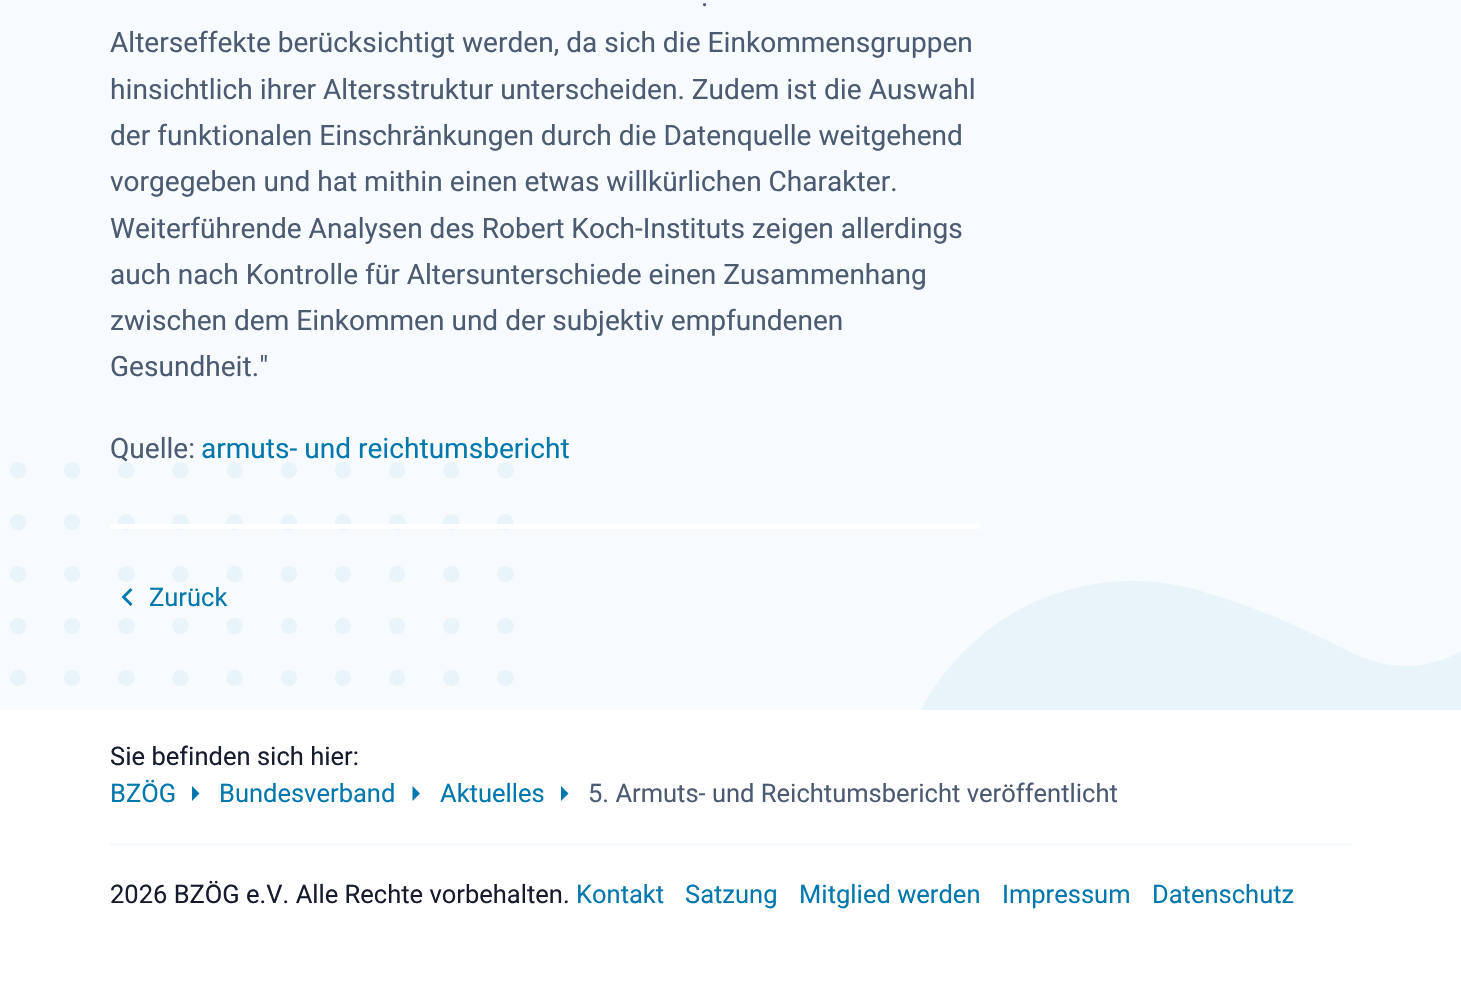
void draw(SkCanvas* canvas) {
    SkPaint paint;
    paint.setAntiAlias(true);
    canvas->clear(0xFFF7FBFE);
    canvas->drawImageRect(SkImages::DeferredFromEncodedData(SkData::MakeFromFileName("img1.png")), SkRect::MakeXYWH(10, 462, 1451, 248), SkSamplingOptions());
    SkFont font1(fontMgr->matchFamilyStyle("Heebo", SkFontStyle::Normal()), 28.05f);
    font1.setSubpixel(true);
    paint.setColor(0xFF4C5B71);
    canvas->drawString(".", 701, 6, font1, paint);
    canvas->drawString("Alterseffekte berücksichtigt werden, da sich die Einkommensgruppen", 110, 52, font1, paint);
    canvas->drawString("hinsichtlich ihrer Altersstruktur unterscheiden. Zudem ist die Auswahl", 110, 99, font1, paint);
    canvas->drawString("der funktionalen Einschränkungen durch die Datenquelle weitgehend", 110, 145, font1, paint);
    canvas->drawString("vorgegeben und hat mithin einen etwas willkürlichen Charakter.", 110, 191, font1, paint);
    canvas->drawString("Weiterführende Analysen des Robert Koch-Instituts zeigen allerdings", 110, 238, font1, paint);
    canvas->drawString("auch nach Kontrolle für Altersunterschiede einen Zusammenhang", 110, 284, font1, paint);
    canvas->drawString("zwischen dem Einkommen und der subjektiv empfundenen", 110, 330, font1, paint);
    canvas->drawString("Gesundheit.\"", 110, 376, font1, paint);
    canvas->drawString("Quelle:", 110, 458, font1, paint);
    paint.setColor(0xFF0077AD);
    canvas->drawString("armuts- und reichtumsbericht", 201, 458, font1, paint);
    paint.setColor(0xFFFFFFFF);
    canvas->drawRect(SkRect::MakeXYWH(110, 524, 870, 5), paint);
    SkFont font2(fontMgr->matchFamilyStyle("Heebo", SkFontStyle::Normal()), 25.5f);
    font2.setSubpixel(true);
    paint.setColor(0xFF0077AD);
    canvas->drawString("Zurück", 149, 606, font2, paint);
    canvas->drawPath(SkPathBuilder().moveTo(132.5f, 590).lineTo(130.5f, 588).lineTo(121.5f, 597).lineTo(130.5f, 606).lineTo(132.5f, 604).lineTo(125.5f, 597).close().detach(), paint);
    paint.setColor(0xFFFFFFFF);
    canvas->drawRect(SkRect::MakeXYWH(0, 710, 1461, 283), paint);
    paint.setColor(0xFFF7FBFE);
    canvas->drawRect(SkRect::MakeXYWH(110, 843, 1242, 3), paint);
    paint.setColor(0xFF161C2D);
    canvas->drawString("Sie befinden sich hier:", 110, 765, font2, paint);
    paint.setColor(0xFF0077AD);
    canvas->drawString("BZÖG", 110, 802, font2, paint);
    canvas->drawPath(SkPathBuilder().moveTo(192, 801).lineTo(199.5f, 793.5f).lineTo(192, 786).close().detach(), paint);
    canvas->drawString("Bundesverband", 219, 802, font2, paint);
    canvas->drawPath(SkPathBuilder().moveTo(412.5f, 801).lineTo(420, 793.5f).lineTo(412.5f, 786).close().detach(), paint);
    canvas->drawString("Aktuelles", 440, 802, font2, paint);
    canvas->drawPath(SkPathBuilder().moveTo(561, 801).lineTo(568.5f, 793.5f).lineTo(561, 786).close().detach(), paint);
    paint.setColor(0xFF4C5B71);
    canvas->drawString("5. Armuts- und Reichtumsbericht veröffentlicht", 588, 802, font2, paint);
    paint.setColor(0xFF161C2D);
    canvas->drawString("2026 BZÖG e.V. Alle Rechte vorbehalten.", 110, 903, font2, paint);
    paint.setColor(0xFF0077AD);
    canvas->drawString("Kontakt", 576, 903, font2, paint);
    canvas->drawString("Satzung", 685, 903, font2, paint);
    canvas->drawString("Mitglied werden", 799, 903, font2, paint);
    canvas->drawString("Impressum", 1002, 903, font2, paint);
    canvas->drawString("Datenschutz", 1152, 903, font2, paint);
}
